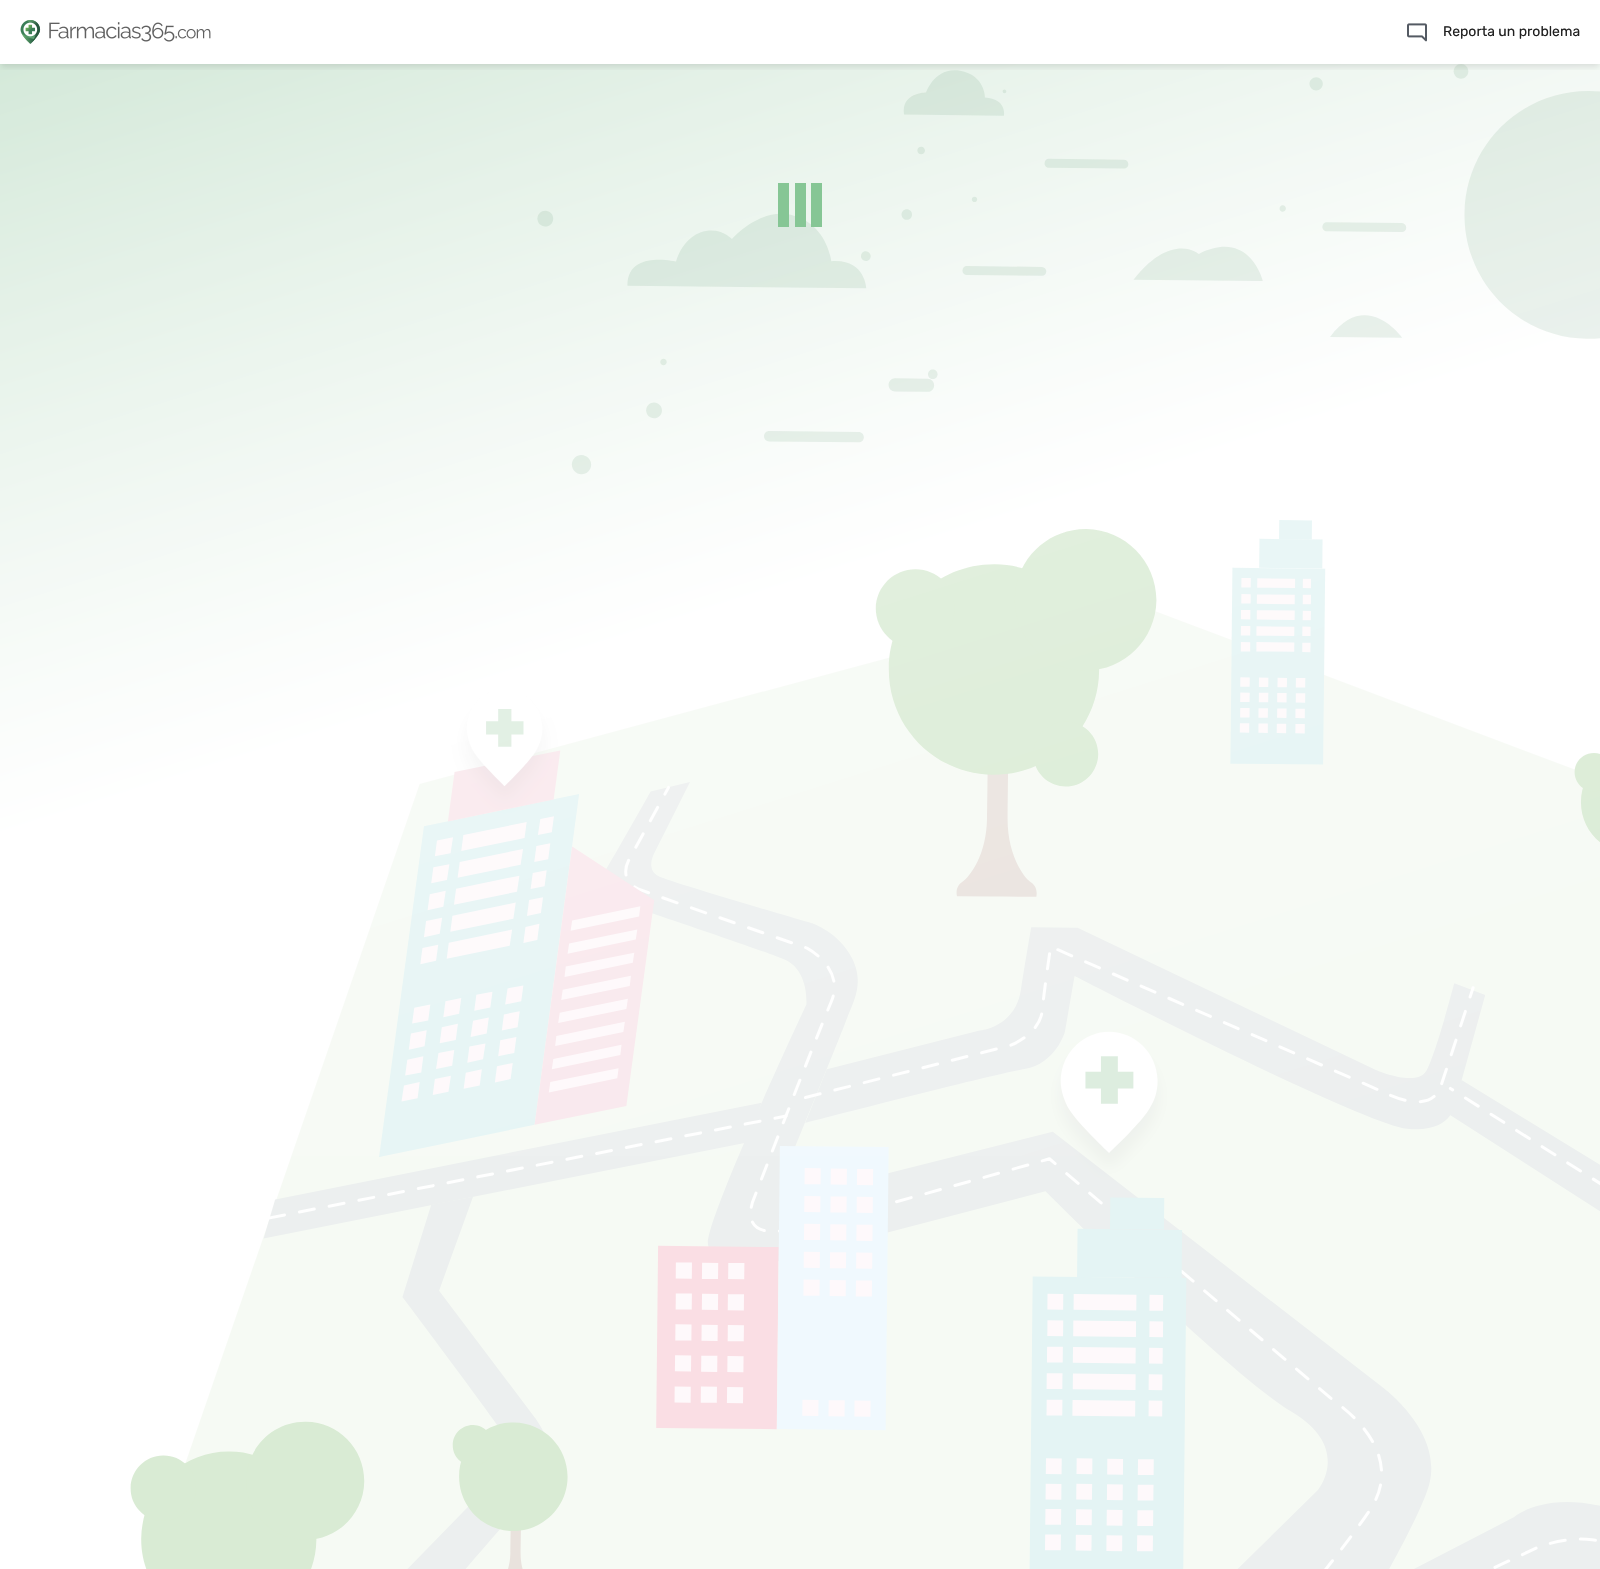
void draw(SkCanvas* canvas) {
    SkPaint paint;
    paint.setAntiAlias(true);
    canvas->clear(0xFFFFFFFF);
    canvas->drawImageRect(SkImages::DeferredFromEncodedData(SkData::MakeFromFileName("img4.png")), SkRect::MakeXYWH(130, 64, 1470, 1505), SkSamplingOptions());
    {
        const SkColor colors[] = {0x4D70B581, 0x36FFFFFF, 0x00FFFFFF};
        const float stops[] = {0, 0.46f, 0.97f};
        const SkPoint ends[] = {{556, -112}, {1044, 1432}};
        paint.setShader(SkGradientShader::MakeLinear(ends, colors, stops, 3, SkTileMode::kClamp));
        paint.setAlpha(255);
    }
    canvas->drawRect(SkRect::MakeXYWH(0, 64, 1600, 1092), paint);
    canvas->save();
    canvas->clipRect(SkRect::MakeXYWH(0, 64, 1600, 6));
    paint.setShader(nullptr);
    paint.setColor(0x1A000000);
    paint.setMaskFilter(SkMaskFilter::MakeBlur(kNormal_SkBlurStyle, 3));
    canvas->drawRect(SkRect::MakeXYWH(1, 5, 1598, 62), paint);
    paint.setMaskFilter(nullptr);
    canvas->restore();
    canvas->drawImageRect(SkImages::DeferredFromEncodedData(SkData::MakeFromFileName("img1.png")), SkRect::MakeXYWH(20, 20, 21, 24), SkSamplingOptions());
    canvas->drawImageRect(SkImages::DeferredFromEncodedData(SkData::MakeFromFileName("img2.png")), SkRect::MakeXYWH(49, 22, 162, 20), SkSamplingOptions());
    canvas->drawImageRect(SkImages::DeferredFromEncodedData(SkData::MakeFromFileName("img3.png")), SkRect::MakeXYWH(1407, 23, 20, 19), SkSamplingOptions());
    SkFont font1(fontMgr->matchFamilyStyle("Rubik", SkFontStyle(300, SkFontStyle::kNormal_Width, SkFontStyle::kUpright_Slant)), 14);
    font1.setSubpixel(true);
    paint.setColor(0xFF202020);
    canvas->drawString("Reporta un problema", 1443, 36, font1, paint);
    paint.setColor(0xFF86C695);
    canvas->drawRect(SkRect::MakeXYWH(795, 183, 11, 44), paint);
    canvas->drawRect(SkRect::MakeXYWH(778, 183, 11, 44), paint);
    canvas->drawRect(SkRect::MakeXYWH(811, 183, 11, 44), paint);
}
